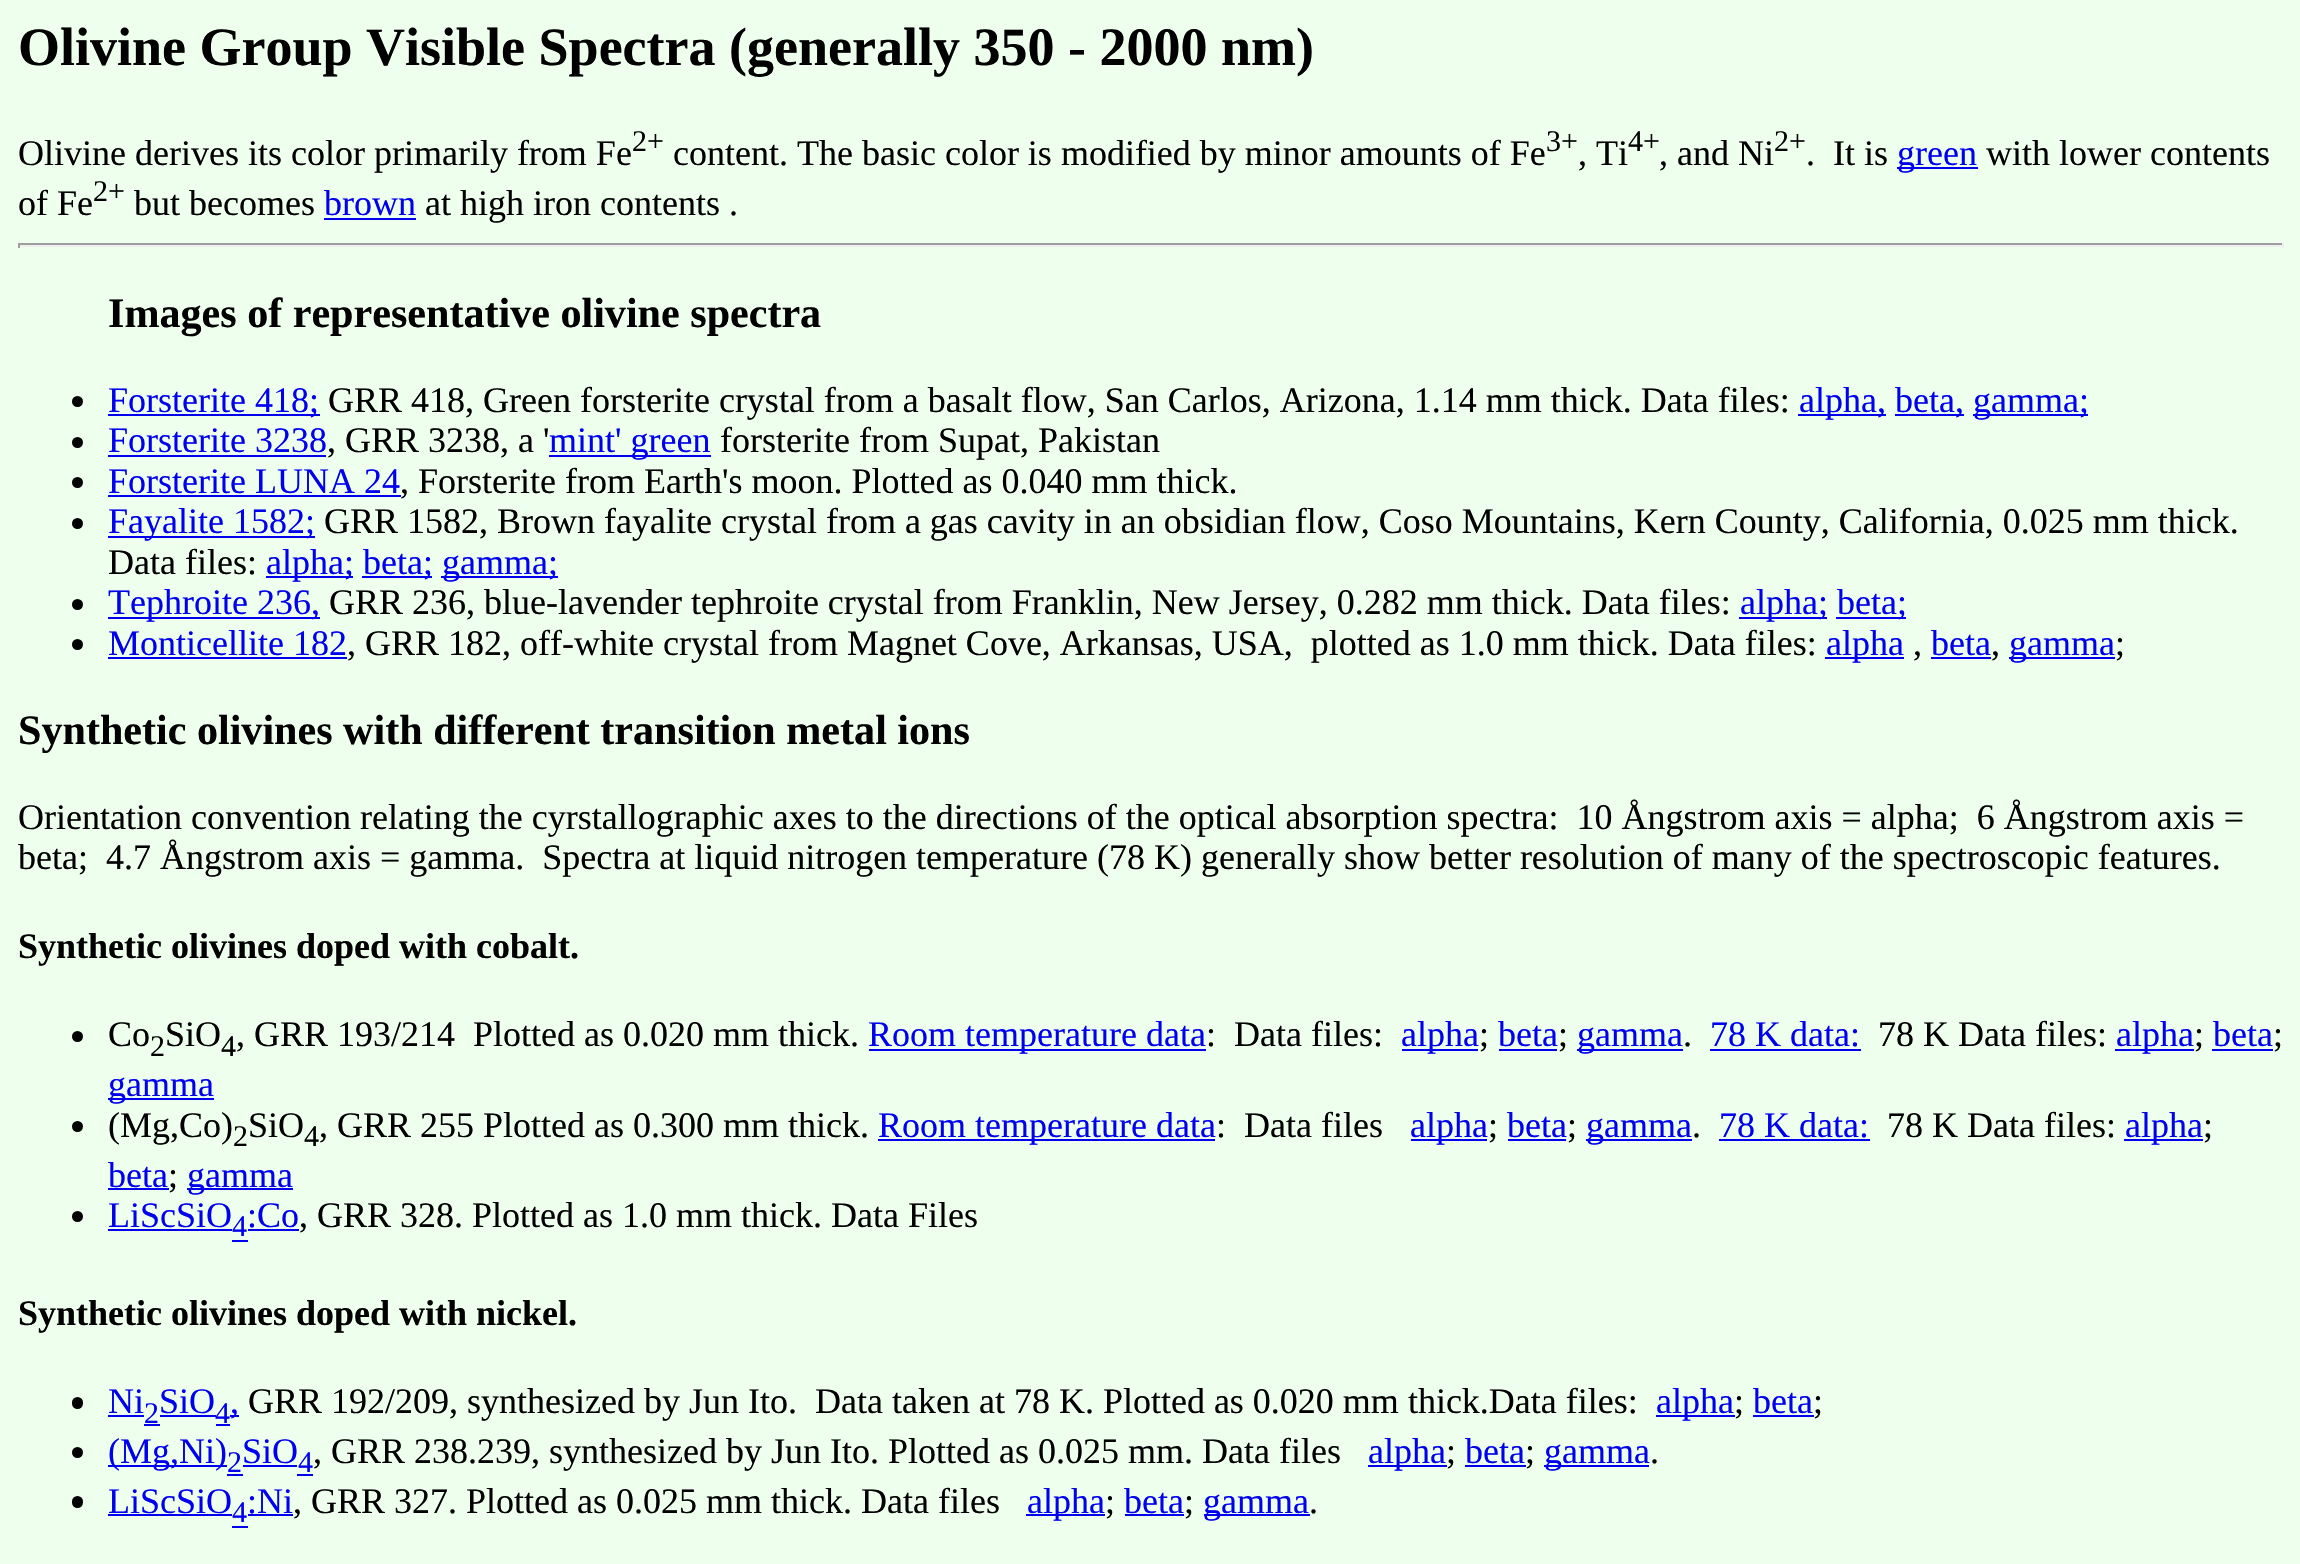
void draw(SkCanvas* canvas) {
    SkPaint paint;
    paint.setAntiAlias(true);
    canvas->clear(0xFFEEFFEE);
    SkFont font1(fontMgr->matchFamilyStyle("Liberation Serif", SkFontStyle::Bold()), 54);
    font1.setSubpixel(true);
    paint.setColor(0xFF000000);
    canvas->drawString("Olivine Group Visible Spectra (generally 350 - 2000 nm)", 18, 65, font1, paint);
    SkFont font2(fontMgr->matchFamilyStyle("Liberation Serif", SkFontStyle::Normal()), 36);
    font2.setSubpixel(true);
    canvas->drawString("Olivine derives its color primarily from Fe", 18, 165, font2, paint);
    SkFont font3(fontMgr->matchFamilyStyle("Liberation Serif", SkFontStyle::Normal()), 30);
    font3.setSubpixel(true);
    canvas->drawString("2+", 632, 151, font3, paint);
    canvas->drawString("content. The basic color is modified by minor amounts of Fe", 673, 165, font2, paint);
    canvas->drawString("3+", 1546, 151, font3, paint);
    canvas->drawString(", Ti", 1578, 165, font2, paint);
    canvas->drawString("4+", 1628, 151, font3, paint);
    canvas->drawString(", and Ni", 1659, 165, font2, paint);
    canvas->drawString("2+", 1774, 151, font3, paint);
    canvas->drawString(".  It is", 1806, 165, font2, paint);
    paint.setColor(0xFF0000EE);
    canvas->drawRect(SkRect::MakeXYWH(1897, 167, 81, 2), paint);
    canvas->drawString("green", 1897, 165, font2, paint);
    paint.setColor(0xFF000000);
    canvas->drawString("with lower contents", 1986, 165, font2, paint);
    canvas->drawString("of Fe", 18, 215, font2, paint);
    canvas->drawString("2+", 93, 201, font3, paint);
    canvas->drawString("but becomes", 134, 215, font2, paint);
    paint.setColor(0xFF0000EE);
    canvas->drawString("brown", 324, 215, font2, paint);
    canvas->drawRect(SkRect::MakeXYWH(324, 218, 92, 2), paint);
    paint.setColor(0xFF000000);
    canvas->drawString("at high iron contents .", 425, 215, font2, paint);
    paint.setColor(0xFF9F9F9F);
    canvas->drawRect(SkRect::MakeXYWH(18, 243, 2266, 2), paint);
    paint.setColor(0xFFEEEEEE);
    canvas->drawRect(SkRect::MakeXYWH(2282, 243, 2, 5), paint);
    canvas->drawRect(SkRect::MakeXYWH(18, 245, 2266, 2), paint);
    paint.setColor(0xFF9F9F9F);
    canvas->drawRect(SkRect::MakeXYWH(18, 243, 2, 5), paint);
    SkFont font4(fontMgr->matchFamilyStyle("Liberation Serif", SkFontStyle::Bold()), 42.1f);
    font4.setSubpixel(true);
    paint.setColor(0xFF000000);
    canvas->drawString("Images of representative olivine spectra", 108, 327, font4, paint);
    canvas->drawCircle(77.5f, 401.5f, 5.5f, paint);
    paint.setColor(0xFF0000EE);
    canvas->drawRect(SkRect::MakeXYWH(108, 414, 212, 2), paint);
    canvas->drawString("Forsterite 418;", 108, 412, font2, paint);
    paint.setColor(0xFF000000);
    canvas->drawString("GRR 418, Green forsterite crystal from a basalt flow, San Carlos, Arizona, 1.14 mm thick. Data files:", 328, 412, font2, paint);
    paint.setColor(0xFF0000EE);
    canvas->drawRect(SkRect::MakeXYWH(1798, 414, 88, 2), paint);
    canvas->drawString("alpha,", 1799, 412, font2, paint);
    canvas->drawRect(SkRect::MakeXYWH(1895, 414, 69, 2), paint);
    canvas->drawString("beta,", 1895, 412, font2, paint);
    canvas->drawRect(SkRect::MakeXYWH(1973, 414, 115, 2), paint);
    canvas->drawString("gamma;", 1973, 412, font2, paint);
    paint.setColor(0xFF000000);
    canvas->drawCircle(77.5f, 442.5f, 5.5f, paint);
    paint.setColor(0xFF0000EE);
    canvas->drawString("Forsterite 3238", 108, 452, font2, paint);
    canvas->drawRect(SkRect::MakeXYWH(108, 455, 218, 2), paint);
    paint.setColor(0xFF000000);
    canvas->drawString(", GRR 3238, a '", 327, 452, font2, paint);
    paint.setColor(0xFF0000EE);
    canvas->drawRect(SkRect::MakeXYWH(549, 455, 162, 2), paint);
    canvas->drawString("mint' green", 549, 452, font2, paint);
    paint.setColor(0xFF000000);
    canvas->drawString("forsterite from Supat, Pakistan", 720, 452, font2, paint);
    canvas->drawCircle(77.5f, 482.5f, 5.5f, paint);
    paint.setColor(0xFF0000EE);
    canvas->drawString("Forsterite LUNA 24", 108, 493, font2, paint);
    canvas->drawRect(SkRect::MakeXYWH(108, 495, 293, 2), paint);
    paint.setColor(0xFF000000);
    canvas->drawString(", Forsterite from Earth's moon. Plotted as 0.040 mm thick.", 400, 493, font2, paint);
    canvas->drawCircle(77.5f, 523.5f, 5.5f, paint);
    paint.setColor(0xFF0000EE);
    canvas->drawRect(SkRect::MakeXYWH(108, 536, 207, 2), paint);
    canvas->drawString("Fayalite 1582;", 108, 533, font2, paint);
    paint.setColor(0xFF000000);
    canvas->drawString("GRR 1582, Brown fayalite crystal from a gas cavity in an obsidian flow, Coso Mountains, Kern County, California, 0.025 mm thick.", 324, 533, font2, paint);
    canvas->drawString("Data files:", 108, 574, font2, paint);
    paint.setColor(0xFF0000EE);
    canvas->drawRect(SkRect::MakeXYWH(266, 576, 87, 2), paint);
    canvas->drawString("alpha;", 266, 574, font2, paint);
    canvas->drawRect(SkRect::MakeXYWH(362, 576, 70, 2), paint);
    canvas->drawString("beta;", 363, 574, font2, paint);
    canvas->drawRect(SkRect::MakeXYWH(441, 576, 117, 2), paint);
    canvas->drawString("gamma;", 442, 574, font2, paint);
    paint.setColor(0xFF000000);
    canvas->drawCircle(77.5f, 604.5f, 5.5f, paint);
    paint.setColor(0xFF0000EE);
    canvas->drawRect(SkRect::MakeXYWH(108, 617, 212, 2), paint);
    canvas->drawString("Tephroite 236,", 108, 614, font2, paint);
    paint.setColor(0xFF000000);
    canvas->drawString("GRR 236, blue-lavender tephroite crystal from Franklin, New Jersey, 0.282 mm thick. Data files:", 329, 614, font2, paint);
    paint.setColor(0xFF0000EE);
    canvas->drawRect(SkRect::MakeXYWH(1739, 617, 88, 2), paint);
    canvas->drawString("alpha;", 1740, 614, font2, paint);
    canvas->drawRect(SkRect::MakeXYWH(1836, 617, 70, 2), paint);
    canvas->drawString("beta;", 1837, 614, font2, paint);
    paint.setColor(0xFF000000);
    canvas->drawCircle(77.5f, 644.5f, 5.5f, paint);
    paint.setColor(0xFF0000EE);
    canvas->drawString("Monticellite 182", 108, 655, font2, paint);
    canvas->drawRect(SkRect::MakeXYWH(108, 657, 239, 2), paint);
    paint.setColor(0xFF000000);
    canvas->drawString(", GRR 182, off-white crystal from Magnet Cove, Arkansas, USA,  plotted as 1.0 mm thick. Data files:", 347, 655, font2, paint);
    paint.setColor(0xFF0000EE);
    canvas->drawRect(SkRect::MakeXYWH(1825, 657, 79, 2), paint);
    canvas->drawString("alpha", 1826, 655, font2, paint);
    canvas->drawString("beta", 1931, 655, font2, paint);
    canvas->drawRect(SkRect::MakeXYWH(1931, 657, 60, 2), paint);
    canvas->drawRect(SkRect::MakeXYWH(2009, 657, 106, 2), paint);
    canvas->drawString("gamma", 2009, 655, font2, paint);
    paint.setColor(0xFF000000);
    canvas->drawString(";", 2115, 655, font2, paint);
    canvas->drawString(",", 1913, 655, font2, paint);
    canvas->drawString(",", 1991, 655, font2, paint);
    canvas->drawString("Synthetic olivines with different transition metal ions", 18, 744, font4, paint);
    canvas->drawString("Orientation convention relating the cyrstallographic axes to the directions of the optical absorption spectra:  10 Ångstrom axis = alpha;  6 Ångstrom axis =", 18, 829, font2, paint);
    canvas->drawString("beta;  4.7 Ångstrom axis = gamma.  Spectra at liquid nitrogen temperature (78 K) generally show better resolution of many of the spectroscopic features.", 18, 869, font2, paint);
    SkFont font5(fontMgr->matchFamilyStyle("Liberation Serif", SkFontStyle::Bold()), 36);
    font5.setSubpixel(true);
    canvas->drawString("Synthetic olivines doped with cobalt.", 18, 958, font5, paint);
    canvas->drawCircle(77.5f, 1036.5f, 5.5f, paint);
    canvas->drawString("Co", 108, 1046, font2, paint);
    canvas->drawString("2", 150, 1056, font3, paint);
    canvas->drawString("SiO", 165, 1046, font2, paint);
    canvas->drawString("4", 221, 1056, font3, paint);
    canvas->drawString(", GRR 193/214  Plotted as 0.020 mm thick.", 236, 1046, font2, paint);
    paint.setColor(0xFF0000EE);
    canvas->drawRect(SkRect::MakeXYWH(869, 1049, 337, 2), paint);
    canvas->drawString("Room temperature data", 868, 1046, font2, paint);
    paint.setColor(0xFF000000);
    canvas->drawString(":  Data files:", 1206, 1046, font2, paint);
    paint.setColor(0xFF0000EE);
    canvas->drawRect(SkRect::MakeXYWH(1402, 1049, 76, 2), paint);
    canvas->drawString("alpha", 1401, 1046, font2, paint);
    paint.setColor(0xFF000000);
    canvas->drawString(";", 1479, 1046, font2, paint);
    paint.setColor(0xFF0000EE);
    canvas->drawString("beta", 1498, 1046, font2, paint);
    canvas->drawRect(SkRect::MakeXYWH(1499, 1049, 58, 2), paint);
    paint.setColor(0xFF000000);
    canvas->drawString(";", 1558, 1046, font2, paint);
    paint.setColor(0xFF0000EE);
    canvas->drawRect(SkRect::MakeXYWH(1577, 1049, 106, 2), paint);
    canvas->drawString("gamma", 1577, 1046, font2, paint);
    paint.setColor(0xFF000000);
    canvas->drawString(".", 1683, 1046, font2, paint);
    paint.setColor(0xFF0000EE);
    canvas->drawString("78 K data:", 1710, 1046, font2, paint);
    canvas->drawRect(SkRect::MakeXYWH(1710, 1049, 151, 2), paint);
    paint.setColor(0xFF000000);
    canvas->drawString("78 K Data files:", 1878, 1046, font2, paint);
    paint.setColor(0xFF0000EE);
    canvas->drawRect(SkRect::MakeXYWH(2115, 1049, 79, 2), paint);
    canvas->drawString("alpha", 2116, 1046, font2, paint);
    paint.setColor(0xFF000000);
    canvas->drawString(";", 2194, 1046, font2, paint);
    paint.setColor(0xFF0000EE);
    canvas->drawString("beta", 2213, 1046, font2, paint);
    canvas->drawRect(SkRect::MakeXYWH(2212, 1049, 61, 2), paint);
    paint.setColor(0xFF000000);
    canvas->drawString(";", 2273, 1046, font2, paint);
    paint.setColor(0xFF0000EE);
    canvas->drawRect(SkRect::MakeXYWH(108, 1098, 106, 2), paint);
    canvas->drawString("gamma", 108, 1096, font2, paint);
    paint.setColor(0xFF000000);
    canvas->drawCircle(77.5f, 1126.5f, 5.5f, paint);
    canvas->drawString("(Mg,Co)", 108, 1137, font2, paint);
    canvas->drawString("2", 233, 1146, font3, paint);
    canvas->drawString("SiO", 248, 1137, font2, paint);
    canvas->drawString("4", 304, 1146, font3, paint);
    canvas->drawString(", GRR 255 Plotted as 0.300 mm thick.", 319, 1137, font2, paint);
    paint.setColor(0xFF0000EE);
    canvas->drawRect(SkRect::MakeXYWH(878, 1139, 337, 2), paint);
    canvas->drawString("Room temperature data", 878, 1137, font2, paint);
    paint.setColor(0xFF000000);
    canvas->drawString(":  Data files", 1216, 1137, font2, paint);
    paint.setColor(0xFF0000EE);
    canvas->drawRect(SkRect::MakeXYWH(1411, 1139, 76, 2), paint);
    canvas->drawString("alpha", 1410, 1137, font2, paint);
    paint.setColor(0xFF000000);
    canvas->drawString(";", 1488, 1137, font2, paint);
    paint.setColor(0xFF0000EE);
    canvas->drawString("beta", 1507, 1137, font2, paint);
    canvas->drawRect(SkRect::MakeXYWH(1508, 1139, 58, 2), paint);
    paint.setColor(0xFF000000);
    canvas->drawString(";", 1567, 1137, font2, paint);
    paint.setColor(0xFF0000EE);
    canvas->drawRect(SkRect::MakeXYWH(1586, 1139, 106, 2), paint);
    canvas->drawString("gamma", 1586, 1137, font2, paint);
    paint.setColor(0xFF000000);
    canvas->drawString(".", 1692, 1137, font2, paint);
    paint.setColor(0xFF0000EE);
    canvas->drawString("78 K data:", 1719, 1137, font2, paint);
    canvas->drawRect(SkRect::MakeXYWH(1719, 1139, 151, 2), paint);
    paint.setColor(0xFF000000);
    canvas->drawString("78 K Data files:", 1887, 1137, font2, paint);
    paint.setColor(0xFF0000EE);
    canvas->drawRect(SkRect::MakeXYWH(2124, 1139, 79, 2), paint);
    canvas->drawString("alpha", 2125, 1137, font2, paint);
    paint.setColor(0xFF000000);
    canvas->drawString(";", 2203, 1137, font2, paint);
    paint.setColor(0xFF0000EE);
    canvas->drawString("beta", 108, 1187, font2, paint);
    canvas->drawRect(SkRect::MakeXYWH(108, 1188, 61, 2), paint);
    paint.setColor(0xFF000000);
    canvas->drawString(";", 168, 1187, font2, paint);
    paint.setColor(0xFF0000EE);
    canvas->drawRect(SkRect::MakeXYWH(187, 1188, 106, 2), paint);
    canvas->drawString("gamma", 187, 1187, font2, paint);
    paint.setColor(0xFF000000);
    canvas->drawCircle(77.5f, 1216.5f, 5.5f, paint);
    paint.setColor(0xFF0000EE);
    canvas->drawString("LiScSiO", 108, 1227, font2, paint);
    canvas->drawString("4", 232, 1236, font3, paint);
    canvas->drawRect(SkRect::MakeXYWH(108, 1229, 124, 2), paint);
    canvas->drawRect(SkRect::MakeXYWH(232, 1240, 16, 2), paint);
    canvas->drawRect(SkRect::MakeXYWH(248, 1229, 51, 2), paint);
    canvas->drawString(":Co", 247, 1227, font2, paint);
    paint.setColor(0xFF000000);
    canvas->drawString(", GRR 328. Plotted as 1.0 mm thick. Data Files", 299, 1227, font2, paint);
    canvas->drawString("Synthetic olivines doped with nickel.", 18, 1325, font5, paint);
    canvas->drawRoundRect(SkRect::MakeXYWH(72, 1397, 11, 12), 5.5f, 5.5f, paint);
    paint.setColor(0xFF0000EE);
    canvas->drawString("Ni", 108, 1413, font2, paint);
    canvas->drawString("2", 144, 1423, font3, paint);
    canvas->drawRect(SkRect::MakeXYWH(108, 1415, 36, 2), paint);
    canvas->drawRect(SkRect::MakeXYWH(144, 1424, 16, 2), paint);
    canvas->drawString("SiO", 159, 1413, font2, paint);
    canvas->drawRect(SkRect::MakeXYWH(160, 1415, 56, 2), paint);
    canvas->drawString("4", 215, 1423, font3, paint);
    canvas->drawRect(SkRect::MakeXYWH(230, 1415, 9, 2), paint);
    canvas->drawString(",", 230, 1413, font2, paint);
    canvas->drawRect(SkRect::MakeXYWH(216, 1424, 14, 2), paint);
    paint.setColor(0xFF000000);
    canvas->drawString("GRR 192/209, synthesized by Jun Ito.  Data taken at 78 K. Plotted as 0.020 mm thick.Data files:", 248, 1413, font2, paint);
    paint.setColor(0xFF0000EE);
    canvas->drawRect(SkRect::MakeXYWH(1656, 1415, 79, 2), paint);
    canvas->drawString("alpha", 1656, 1413, font2, paint);
    paint.setColor(0xFF000000);
    canvas->drawString(";", 1734, 1413, font2, paint);
    paint.setColor(0xFF0000EE);
    canvas->drawString("beta", 1753, 1413, font2, paint);
    canvas->drawRect(SkRect::MakeXYWH(1753, 1415, 61, 2), paint);
    paint.setColor(0xFF000000);
    canvas->drawString(";", 1813, 1413, font2, paint);
    canvas->drawCircle(77.5f, 1452.5f, 5.5f, paint);
    paint.setColor(0xFF0000EE);
    canvas->drawRect(SkRect::MakeXYWH(108, 1465, 119, 2), paint);
    canvas->drawString("(Mg,Ni)", 108, 1463, font2, paint);
    canvas->drawString("2", 227, 1472, font3, paint);
    canvas->drawRect(SkRect::MakeXYWH(227, 1474, 16, 2), paint);
    canvas->drawString("SiO", 242, 1463, font2, paint);
    canvas->drawString("4", 298, 1472, font3, paint);
    canvas->drawRect(SkRect::MakeXYWH(243, 1465, 54, 2), paint);
    canvas->drawRect(SkRect::MakeXYWH(297, 1474, 16, 2), paint);
    paint.setColor(0xFF000000);
    canvas->drawString(", GRR 238.239, synthesized by Jun Ito. Plotted as 0.025 mm. Data files", 313, 1463, font2, paint);
    paint.setColor(0xFF0000EE);
    canvas->drawRect(SkRect::MakeXYWH(1368, 1465, 79, 2), paint);
    canvas->drawString("alpha", 1368, 1463, font2, paint);
    paint.setColor(0xFF000000);
    canvas->drawString(";", 1446, 1463, font2, paint);
    paint.setColor(0xFF0000EE);
    canvas->drawString("beta", 1465, 1463, font2, paint);
    canvas->drawRect(SkRect::MakeXYWH(1465, 1465, 61, 2), paint);
    paint.setColor(0xFF000000);
    canvas->drawString(";", 1525, 1463, font2, paint);
    paint.setColor(0xFF0000EE);
    canvas->drawRect(SkRect::MakeXYWH(1544, 1465, 105, 2), paint);
    canvas->drawString("gamma", 1544, 1463, font2, paint);
    paint.setColor(0xFF000000);
    canvas->drawString(".", 1650, 1463, font2, paint);
    canvas->drawRoundRect(SkRect::MakeXYWH(72, 1496, 11, 12), 5.5f, 5.5f, paint);
    paint.setColor(0xFF0000EE);
    canvas->drawString("LiScSiO", 108, 1513, font2, paint);
    canvas->drawString("4", 232, 1522, font3, paint);
    canvas->drawRect(SkRect::MakeXYWH(108, 1514, 124, 2), paint);
    canvas->drawRect(SkRect::MakeXYWH(232, 1526, 16, 2), paint);
    canvas->drawRect(SkRect::MakeXYWH(248, 1514, 45, 2), paint);
    canvas->drawString(":Ni", 247, 1513, font2, paint);
    paint.setColor(0xFF000000);
    canvas->drawString(", GRR 327. Plotted as 0.025 mm thick. Data files", 293, 1513, font2, paint);
    paint.setColor(0xFF0000EE);
    canvas->drawRect(SkRect::MakeXYWH(1026, 1514, 79, 2), paint);
    canvas->drawString("alpha", 1027, 1513, font2, paint);
    paint.setColor(0xFF000000);
    canvas->drawString(";", 1105, 1513, font2, paint);
    paint.setColor(0xFF0000EE);
    canvas->drawString("beta", 1124, 1513, font2, paint);
    canvas->drawRect(SkRect::MakeXYWH(1125, 1514, 59, 2), paint);
    paint.setColor(0xFF000000);
    canvas->drawString(";", 1184, 1513, font2, paint);
    paint.setColor(0xFF0000EE);
    canvas->drawRect(SkRect::MakeXYWH(1204, 1514, 106, 2), paint);
    canvas->drawString("gamma", 1203, 1513, font2, paint);
    paint.setColor(0xFF000000);
    canvas->drawString(".", 1309, 1513, font2, paint);
}
